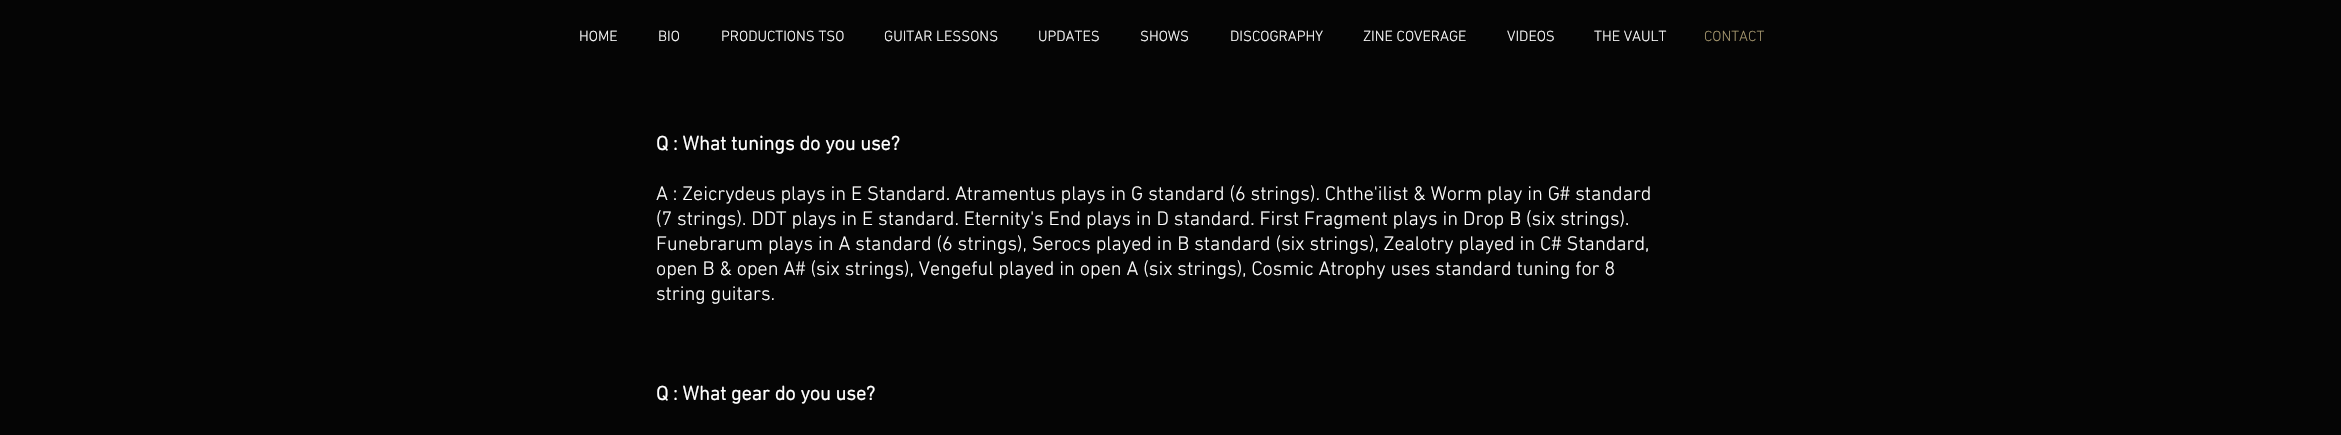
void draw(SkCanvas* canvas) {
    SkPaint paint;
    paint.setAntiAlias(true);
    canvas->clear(0xFF050505);
    SkFont font1(fontMgr->matchFamilyStyle("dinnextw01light", SkFontStyle(300, SkFontStyle::kNormal_Width, SkFontStyle::kUpright_Slant)), 15);
    font1.setSubpixel(true);
    paint.setColor(0xFFFFFFFF);
    canvas->drawString("HOME", 579, 41, font1, paint);
    canvas->drawString("BIO", 658, 41, font1, paint);
    canvas->drawString("PRODUCTIONS TSO", 721, 41, font1, paint);
    canvas->drawString("GUITAR LESSONS", 884, 41, font1, paint);
    canvas->drawString("UPDATES", 1038, 41, font1, paint);
    canvas->drawString("SHOWS", 1140, 41, font1, paint);
    canvas->drawString("DISCOGRAPHY", 1230, 41, font1, paint);
    canvas->drawString("ZINE COVERAGE", 1363, 41, font1, paint);
    canvas->drawString("VIDEOS", 1507, 41, font1, paint);
    canvas->drawString("THE VAULT", 1594, 41, font1, paint);
    paint.setColor(0xFFA3956D);
    canvas->drawString("CONTACT", 1704, 41, font1, paint);
    SkFont font2(fontMgr->matchFamilyStyle("dinnextw01light", SkFontStyle::Bold()), 20);
    font2.setSubpixel(true);
    paint.setColor(0xFFFFFFFF);
    canvas->drawString("Q : What tunings do you use?", 656, 150, font2, paint);
    SkFont font3(fontMgr->matchFamilyStyle("dinnextw01light", SkFontStyle(300, SkFontStyle::kNormal_Width, SkFontStyle::kUpright_Slant)), 20);
    font3.setSubpixel(true);
    canvas->drawString("A : Zeicrydeus plays in E Standard. Atramentus plays in G standard (6 strings). Chthe'ilist & Worm play in G# standard", 656, 200, font3, paint);
    canvas->drawString("(7 strings). DDT plays in E standard. Eternity's End plays in D standard. First Fragment plays in Drop B (six strings).", 656, 225, font3, paint);
    canvas->drawString("Funebrarum plays in A standard (6 strings), Serocs played in B standard (six strings), Zealotry played in C# Standard,", 656, 250, font3, paint);
    canvas->drawString("open B & open A# (six strings), Vengeful played in open A (six strings), Cosmic Atrophy uses standard tuning for 8", 656, 275, font3, paint);
    canvas->drawString("string guitars.", 656, 300, font3, paint);
    canvas->drawString("Q : What gear do you use?", 656, 400, font2, paint);
}
